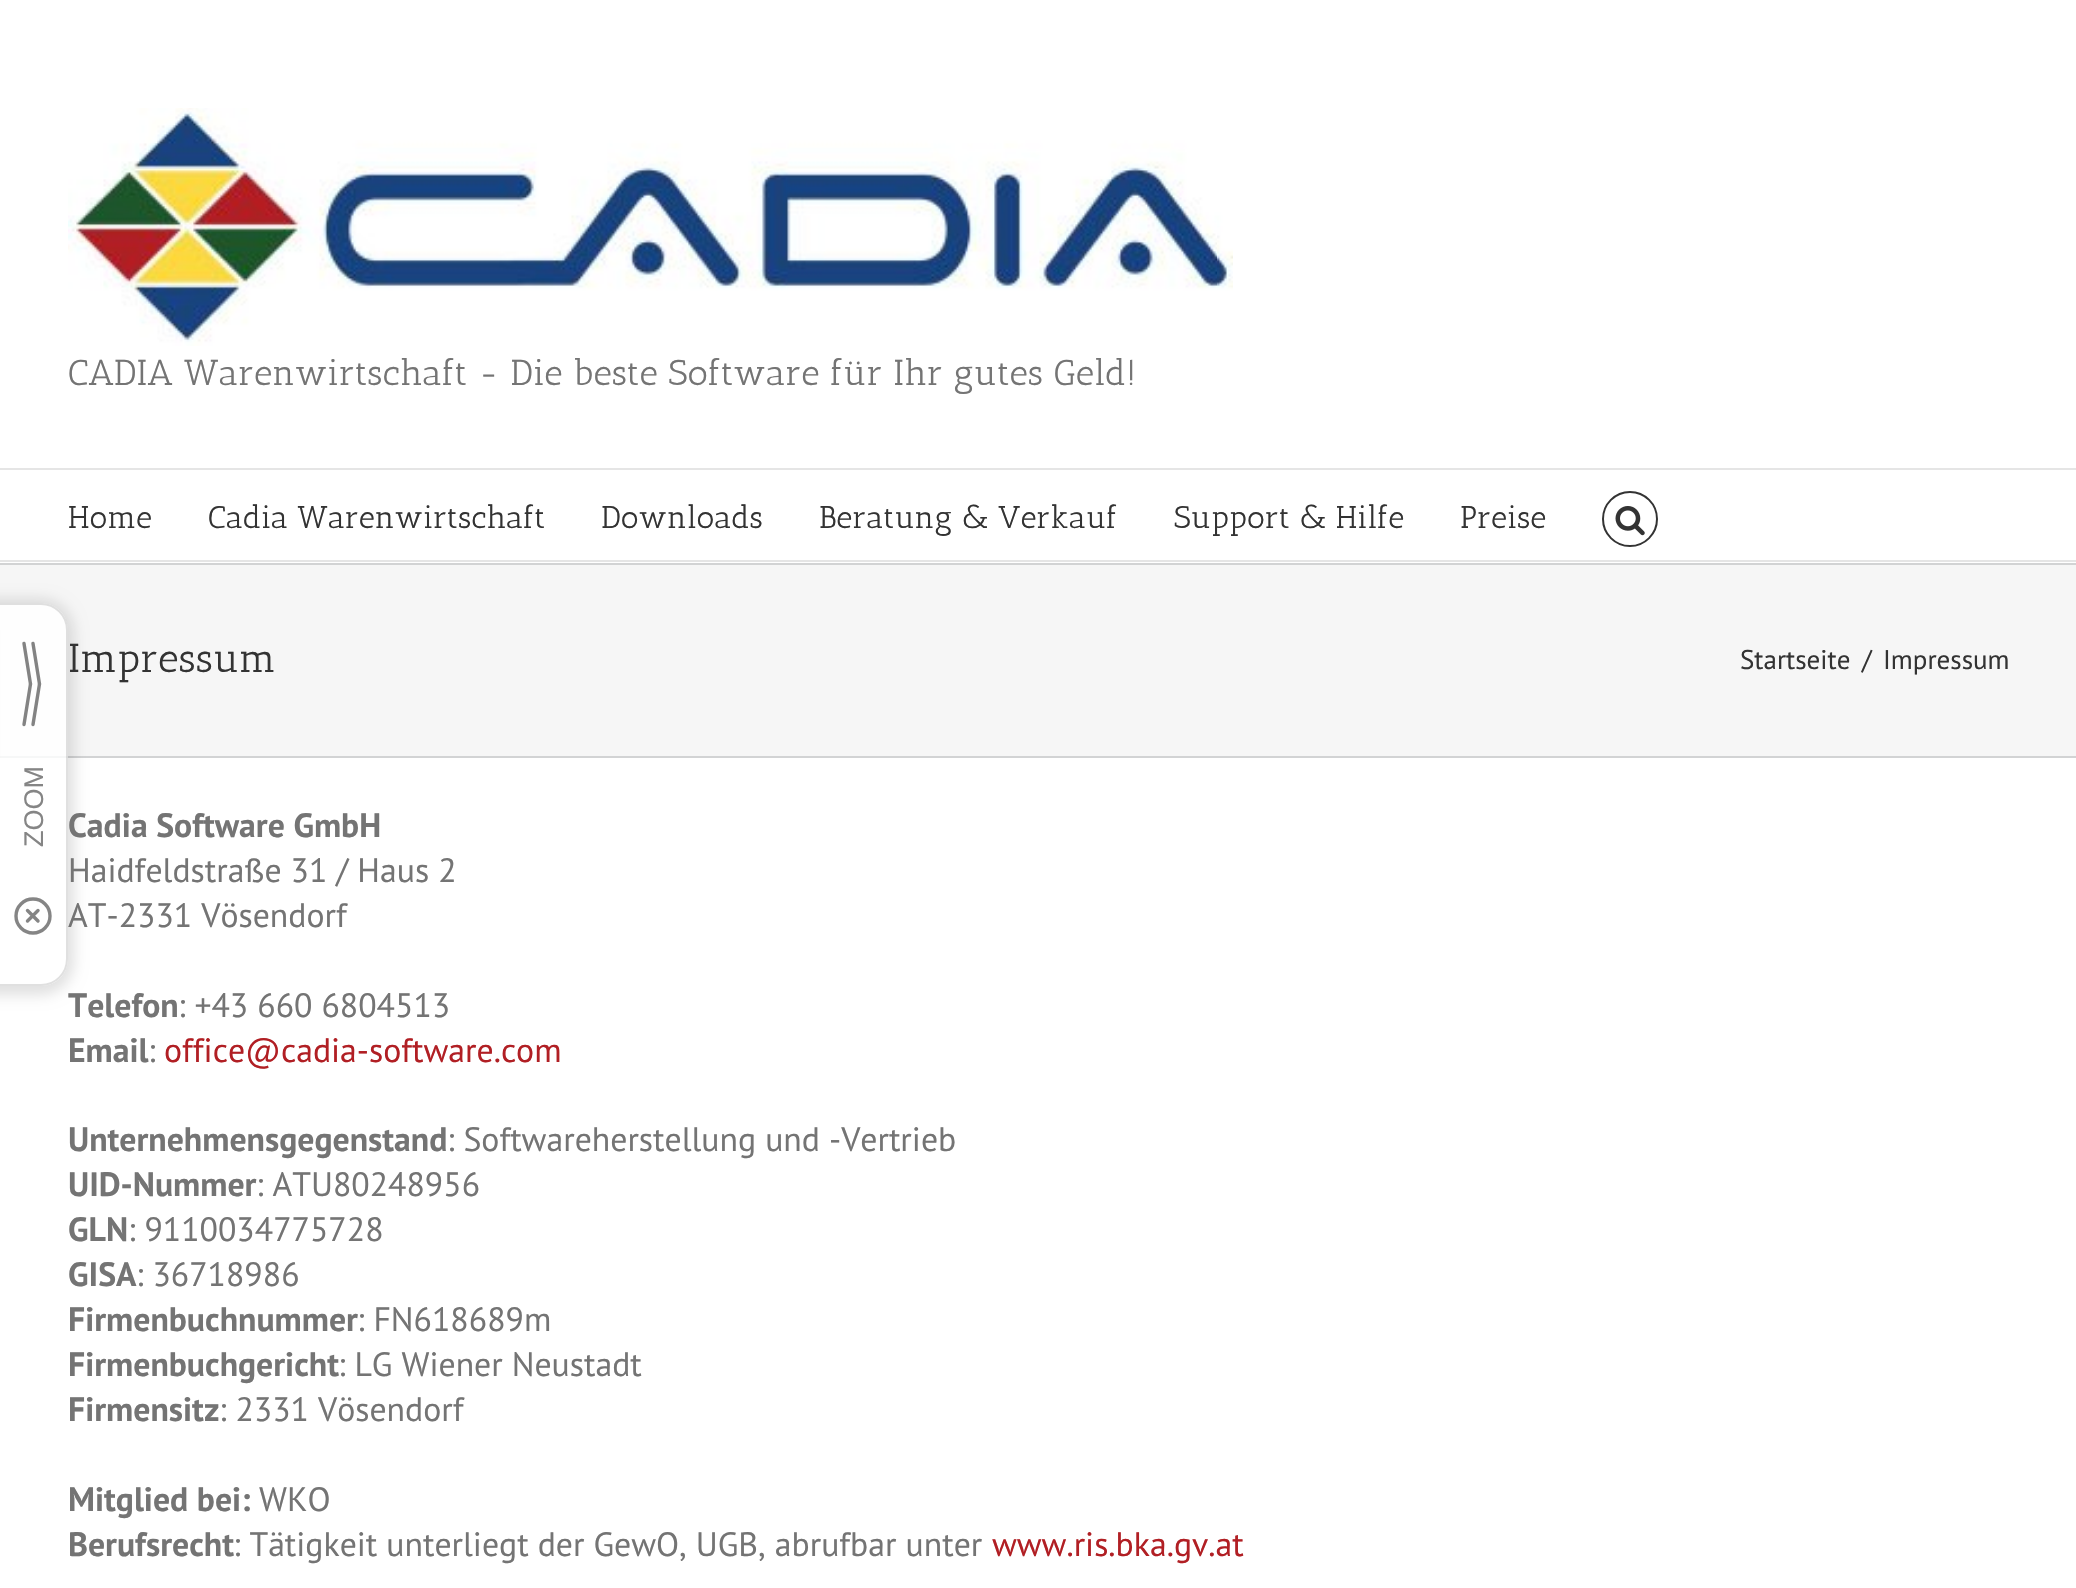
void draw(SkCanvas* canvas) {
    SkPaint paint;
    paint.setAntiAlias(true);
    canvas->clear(0xFFFFFFFF);
    paint.setColor(0xFFF6F6F6);
    canvas->drawRect(SkRect::MakeXYWH(0, 565, 2076, 191), paint);
    paint.setColor(0xFFD2D3D4);
    canvas->drawRect(SkRect::MakeXYWH(0, 756, 2076, 2), paint);
    canvas->save();
    canvas->clipPath(SkPathBuilder(SkPathFillType::kEvenOdd).moveTo(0, 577).lineTo(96, 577).lineTo(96, 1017).lineTo(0, 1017).close().moveTo(-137, 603).lineTo(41, 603).cubicTo(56, 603, 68, 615, 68, 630).lineTo(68, 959).cubicTo(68, 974, 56, 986, 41, 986).lineTo(-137, 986).cubicTo(-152, 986, -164, 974, -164, 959).lineTo(-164, 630).cubicTo(-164, 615, -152, 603, -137, 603).close().detach(), true);
    paint.setColor(0x1F000000);
    paint.setMaskFilter(SkMaskFilter::MakeBlur(kNormal_SkBlurStyle, 7));
    canvas->drawRoundRect(SkRect::MakeXYWH(-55, 599, 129, 396), 34, 34, paint);
    paint.setMaskFilter(nullptr);
    canvas->restore();
    SkFont font1(fontMgr->matchFamilyStyle("PT Sans", SkFontStyle::Normal()), 33.75f);
    font1.setSubpixel(true);
    paint.setColor(0xFF747474);
    canvas->drawString("AT-2331 Vösendorf", 68, 927, font1, paint);
    paint.setColor(0xCCFFFFFF);
    canvas->drawRoundRect(SkRect::MakeXYWH(-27, 603, 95, 383), 27, 27, paint);
    paint.setStyle(SkPaint::kStroke_Style);
    paint.setStrokeWidth(2);
    paint.setColor(0x1F000000);
    canvas->drawRoundRect(SkRect::MakeXYWH(-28, 604, 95, 381), 26, 26, paint);
    paint.setStrokeWidth(3.4f);
    paint.setStrokeCap(SkPaint::kRound_Cap);
    paint.setColor(0xFF838383);
    canvas->drawPath(SkPathBuilder().moveTo(33, 643.5f).lineTo(39.5f, 684).detach(), paint);
    canvas->drawPath(SkPathBuilder().moveTo(39.5f, 684).lineTo(33, 724.5f).detach(), paint);
    canvas->drawPath(SkPathBuilder().moveTo(30.5f, 684).lineTo(24, 643.5f).detach(), paint);
    canvas->drawPath(SkPathBuilder().moveTo(24, 724.5f).lineTo(30.5f, 684).detach(), paint);
    SkFont font2(fontMgr->matchFamilyStyle("Liberation Sans", SkFontStyle::Normal()), 27);
    font2.setSubpixel(true);
    paint.setStyle(SkPaint::kFill_Style);
    paint.setColor(0xFF858585);
    canvas->save();
    canvas->rotate(-90, 43, 847);
    canvas->drawString("ZOOM", 43, 847, font2, paint);
    canvas->restore();
    paint.setStyle(SkPaint::kStroke_Style);
    paint.setStrokeCap(SkPaint::kButt_Cap);
    canvas->drawCircle(33, 916, 17, paint);
    paint.setStrokeCap(SkPaint::kRound_Cap);
    paint.setStrokeJoin(SkPaint::kRound_Join);
    canvas->drawPath(SkPathBuilder().moveTo(38, 910.5f).lineTo(27.5f, 921).moveTo(27.5f, 910.5f).lineTo(38, 921).detach(), paint);
    paint.setStyle(SkPaint::kFill_Style);
    paint.setColor(0xFFE5E5E5);
    canvas->drawRect(SkRect::MakeXYWH(0, 468, 2076, 2), paint);
    canvas->drawImageRect(SkImages::DeferredFromEncodedData(SkData::MakeFromFileName("img1.png")), SkRect::MakeXYWH(68, 108, 1165, 238), SkSamplingOptions());
    SkFont font3(fontMgr->matchFamilyStyle("Antic Slab", SkFontStyle::Normal()), 36);
    font3.setSubpixel(true);
    paint.setColor(0xFF747474);
    canvas->drawString("CADIA Warenwirtschaft - Die beste Software für Ihr gutes Geld!", 68, 385, font3, paint);
    paint.setColor(0xFFE5E5E5);
    canvas->drawRect(SkRect::MakeXYWH(0, 560, 2076, 2), paint);
    SkFont font4(fontMgr->matchFamilyStyle("Antic Slab", SkFontStyle::Normal()), 31.5f);
    font4.setSubpixel(true);
    paint.setColor(0xFF333333);
    canvas->drawString("Home", 68, 528, font4, paint);
    canvas->drawString("Cadia Warenwirtschaft", 208, 528, font4, paint);
    canvas->drawString("Downloads", 601, 528, font4, paint);
    canvas->drawString("Beratung & Verkauf", 819, 528, font4, paint);
    canvas->drawString("Support & Hilfe", 1174, 528, font4, paint);
    canvas->drawString("Preise", 1460, 528, font4, paint);
    paint.setStyle(SkPaint::kStroke_Style);
    paint.setStrokeWidth(2);
    paint.setStrokeCap(SkPaint::kButt_Cap);
    paint.setStrokeJoin(SkPaint::kMiter_Join);
    canvas->drawCircle(1630, 519, 27, paint);
    canvas->drawImageRect(SkImages::DeferredFromEncodedData(SkData::MakeFromFileName("img2.png")), SkRect::MakeXYWH(1615, 506, 30, 30), SkSamplingOptions());
    paint.setStyle(SkPaint::kFill_Style);
    paint.setColor(0xFFD2D3D4);
    canvas->drawRect(SkRect::MakeXYWH(0, 563, 2076, 2), paint);
    SkFont font5(fontMgr->matchFamilyStyle("Antic Slab", SkFontStyle::Normal()), 40.5f);
    font5.setSubpixel(true);
    paint.setColor(0xFF333333);
    canvas->drawString("Impressum", 68, 672, font5, paint);
    SkFont font6(fontMgr->matchFamilyStyle("PT Sans", SkFontStyle::Normal()), 27);
    font6.setSubpixel(true);
    canvas->drawString("Startseite", 1740, 669, font6, paint);
    canvas->drawString("/", 1862, 669, font6, paint);
    canvas->drawString("Impressum", 1883, 669, font6, paint);
    SkFont font7(fontMgr->matchFamilyStyle("PT Sans", SkFontStyle::Bold()), 33.75f);
    font7.setSubpixel(true);
    paint.setColor(0xFF747474);
    canvas->drawString("Cadia Software GmbH", 68, 837, font7, paint);
    canvas->drawString("Haidfeldstraße 31 / Haus 2", 68, 882, font1, paint);
    canvas->drawString("Telefon", 68, 1017, font7, paint);
    canvas->drawString(": +43 660 6804513", 178, 1017, font1, paint);
    canvas->drawString("Email", 68, 1062, font7, paint);
    canvas->drawString(":", 148, 1062, font1, paint);
    paint.setColor(0xFFB11F24);
    canvas->drawString("office@cadia-software.com", 164, 1062, font1, paint);
    paint.setColor(0xFF747474);
    canvas->drawString("Unternehmensgegenstand", 68, 1151, font7, paint);
    canvas->drawString(": Softwareherstellung und -Vertrieb", 447, 1151, font1, paint);
    canvas->drawString("UID-Nummer", 68, 1196, font7, paint);
    canvas->drawString(": ATU80248956", 256, 1196, font1, paint);
    canvas->drawString("GLN", 68, 1241, font7, paint);
    canvas->drawString(": 9110034775728", 128, 1241, font1, paint);
    canvas->drawString("GISA", 68, 1286, font7, paint);
    canvas->drawString(": 36718986", 136, 1286, font1, paint);
    canvas->drawString("Firmenbuchnummer", 68, 1331, font7, paint);
    canvas->drawString(": FN618689m", 357, 1331, font1, paint);
    canvas->drawString("Firmenbuchgericht", 68, 1376, font7, paint);
    canvas->drawString(": LG Wiener Neustadt", 338, 1376, font1, paint);
    canvas->drawString("Firmensitz", 68, 1421, font7, paint);
    canvas->drawString(": 2331 Vösendorf", 219, 1421, font1, paint);
    canvas->drawString("Mitglied bei:", 68, 1511, font7, paint);
    canvas->drawString("WKO", 259, 1511, font1, paint);
    canvas->drawString("Berufsrecht", 68, 1556, font7, paint);
    canvas->drawString(": Tätigkeit unterliegt der GewO, UGB, abrufbar unter", 233, 1556, font1, paint);
    paint.setColor(0xFFB11F24);
    canvas->drawString("www.ris.bka.gv.at", 992, 1556, font1, paint);
}
